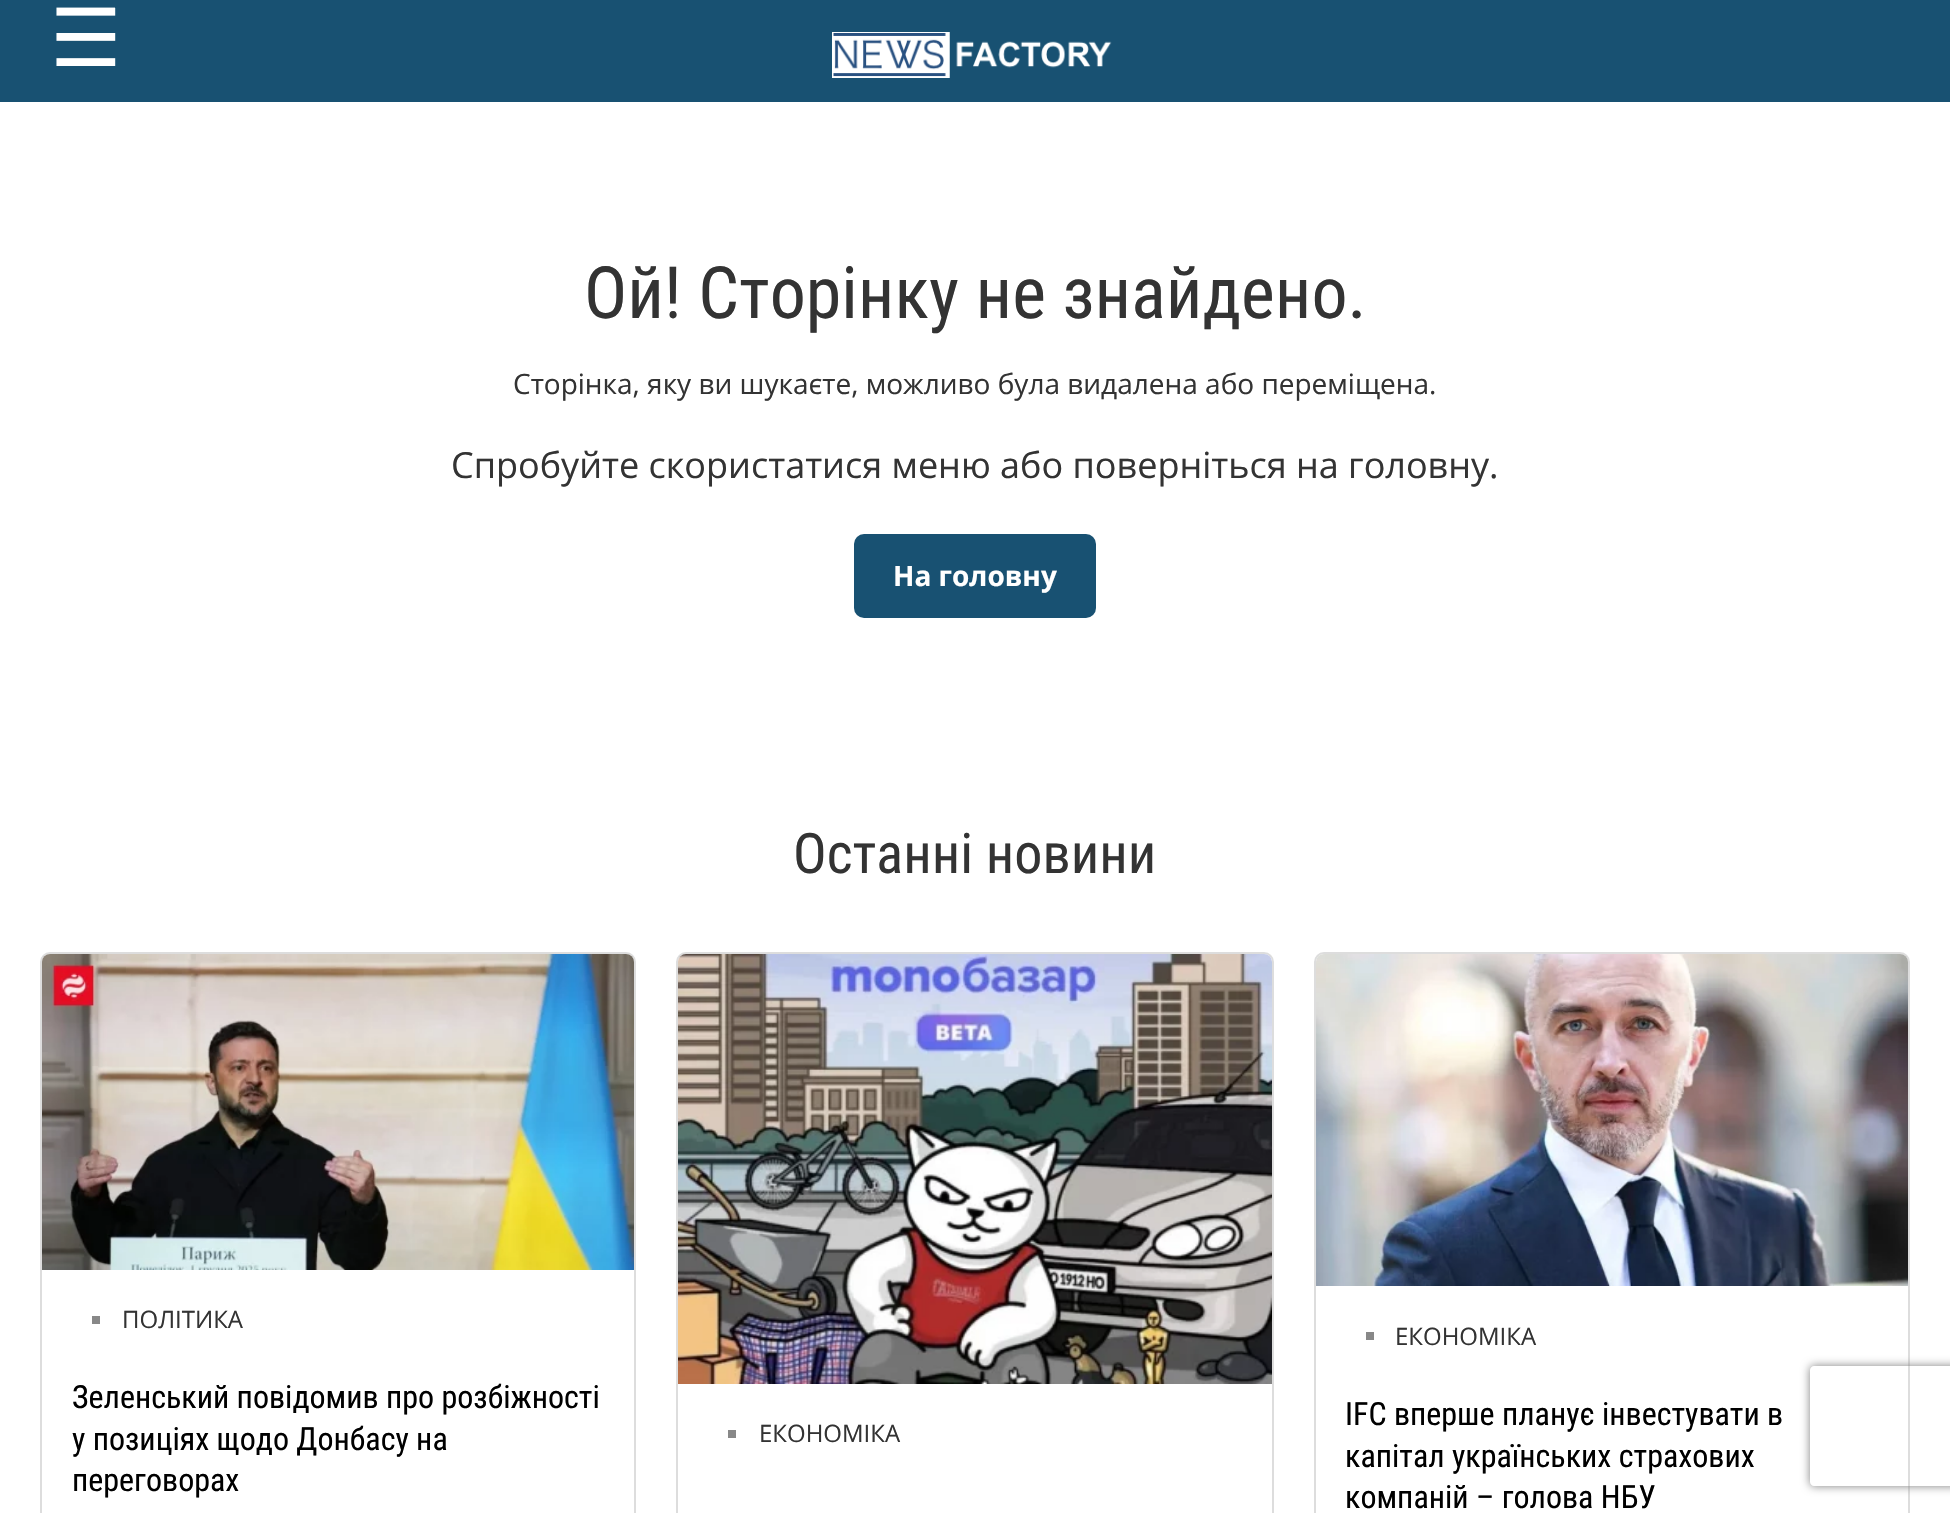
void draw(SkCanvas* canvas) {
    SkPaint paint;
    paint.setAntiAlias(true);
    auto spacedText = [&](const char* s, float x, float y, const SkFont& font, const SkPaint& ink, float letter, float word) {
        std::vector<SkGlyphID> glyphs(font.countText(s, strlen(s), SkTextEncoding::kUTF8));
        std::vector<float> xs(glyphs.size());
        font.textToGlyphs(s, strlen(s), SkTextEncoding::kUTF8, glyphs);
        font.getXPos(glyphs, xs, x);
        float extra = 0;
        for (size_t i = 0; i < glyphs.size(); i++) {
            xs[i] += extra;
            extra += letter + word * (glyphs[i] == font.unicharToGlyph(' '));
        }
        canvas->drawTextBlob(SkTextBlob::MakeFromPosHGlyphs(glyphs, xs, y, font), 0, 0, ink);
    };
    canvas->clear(0xFFFFFFFF);
    paint.setColor(0xFF185172);
    canvas->drawRect(SkRect::MakeXYWH(0, 0, 1950, 102), paint);
    SkFont font1(fontMgr->matchFamilyStyle("DejaVu Sans", SkFontStyle::Normal()), 80);
    font1.setSubpixel(true);
    paint.setColor(0xFFFFFFFF);
    spacedText("☰", 50, 66, font1, paint, 2, 0);
    canvas->drawImageRect(SkImages::DeferredFromEncodedData(SkData::MakeFromFileName("img1.png")), SkRect::MakeXYWH(832, 32, 280, 46), SkSamplingOptions());
    SkFont font2(fontMgr->matchFamilyStyle("Roboto Condensed", SkFontStyle::Normal()), 72);
    font2.setSubpixel(true);
    paint.setColor(0xFF333333);
    canvas->drawString("Ой! Сторінку не знайдено.", 584, 318, font2, paint);
    SkFont font3(fontMgr->matchFamilyStyle("Open Sans", SkFontStyle::Normal()), 28);
    font3.setSubpixel(true);
    canvas->drawString("Сторінка, яку ви шукаєте, можливо була видалена або переміщена.", 513, 394, font3, paint);
    SkFont font4(fontMgr->matchFamilyStyle("Open Sans", SkFontStyle::Normal()), 36);
    font4.setSubpixel(true);
    canvas->drawString("Спробуйте скористатися меню або поверніться на головну.", 451, 478, font4, paint);
    paint.setColor(0xFF185172);
    canvas->drawRoundRect(SkRect::MakeXYWH(854, 534, 242, 84), 10, 10, paint);
    SkFont font5(fontMgr->matchFamilyStyle("Open Sans", SkFontStyle::Bold()), 28);
    font5.setSubpixel(true);
    paint.setColor(0xFFFFFFFF);
    canvas->drawString("На головну", 893, 586, font5, paint);
    SkFont font6(fontMgr->matchFamilyStyle("Roboto Condensed", SkFontStyle::Normal()), 56);
    font6.setSubpixel(true);
    paint.setColor(0xFF333333);
    canvas->drawString("Останні новини", 793, 873, font6, paint);
    paint.setStyle(SkPaint::kStroke_Style);
    paint.setStrokeWidth(2);
    paint.setColor(0xFFDDDDDD);
    canvas->drawRoundRect(SkRect::MakeXYWH(41, 953, 594, 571), 9, 9, paint);
    canvas->drawImageRect(SkImages::DeferredFromEncodedData(SkData::MakeFromFileName("img2.png")), SkRect::MakeXYWH(42, 954, 592, 316), SkSamplingOptions());
    paint.setStyle(SkPaint::kFill_Style);
    paint.setColor(0xFF888888);
    canvas->drawRect(SkRect::MakeXYWH(92, 1316, 8, 8), paint);
    SkFont font7(fontMgr->matchFamilyStyle("Open Sans", SkFontStyle::Normal()), 24);
    font7.setSubpixel(true);
    paint.setColor(0xFF333333);
    canvas->drawString("ПОЛІТИКА", 122, 1328, font7, paint);
    SkFont font8(fontMgr->matchFamilyStyle("Roboto Condensed", SkFontStyle::Normal()), 32);
    font8.setSubpixel(true);
    paint.setColor(0xFF000000);
    canvas->drawString("Зеленський повідомив про розбіжності", 72, 1408, font8, paint);
    canvas->drawString("у позиціях щодо Донбасу на", 72, 1450, font8, paint);
    canvas->drawString("переговорах", 72, 1491, font8, paint);
    paint.setStyle(SkPaint::kStroke_Style);
    paint.setColor(0xFFDDDDDD);
    canvas->drawRoundRect(SkRect::MakeXYWH(677, 953, 596, 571), 9, 9, paint);
    canvas->drawImageRect(SkImages::DeferredFromEncodedData(SkData::MakeFromFileName("img3.png")), SkRect::MakeXYWH(678, 954, 594, 430), SkSamplingOptions());
    paint.setStyle(SkPaint::kFill_Style);
    paint.setColor(0xFF888888);
    canvas->drawRect(SkRect::MakeXYWH(728, 1430, 8, 8), paint);
    paint.setColor(0xFF333333);
    canvas->drawString("ЕКОНОМІКА", 759, 1442, font7, paint);
    paint.setStyle(SkPaint::kStroke_Style);
    paint.setColor(0xFFDDDDDD);
    canvas->drawRoundRect(SkRect::MakeXYWH(1315, 953, 594, 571), 9, 9, paint);
    canvas->drawImageRect(SkImages::DeferredFromEncodedData(SkData::MakeFromFileName("img4.png")), SkRect::MakeXYWH(1316, 954, 592, 332), SkSamplingOptions());
    paint.setStyle(SkPaint::kFill_Style);
    paint.setColor(0xFF888888);
    canvas->drawRect(SkRect::MakeXYWH(1366, 1332, 8, 8), paint);
    paint.setColor(0xFF333333);
    canvas->drawString("ЕКОНОМІКА", 1395, 1345, font7, paint);
    paint.setColor(0xFF000000);
    canvas->drawString("IFC вперше планує інвестувати в", 1345, 1425, font8, paint);
    canvas->drawString("капітал українських страхових", 1345, 1467, font8, paint);
    canvas->drawString("компаній – голова НБУ", 1345, 1508, font8, paint);
    canvas->save();
    canvas->clipPath(SkPathBuilder(SkPathFillType::kEvenOdd).moveTo(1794, 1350).lineTo(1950, 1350).lineTo(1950, 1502).lineTo(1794, 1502).close().moveTo(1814, 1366).lineTo(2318, 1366).cubicTo(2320, 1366, 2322, 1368, 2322, 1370).lineTo(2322, 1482).cubicTo(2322, 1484, 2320, 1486, 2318, 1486).lineTo(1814, 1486).cubicTo(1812, 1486, 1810, 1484, 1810, 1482).lineTo(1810, 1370).cubicTo(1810, 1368, 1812, 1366, 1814, 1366).close().detach(), true);
    paint.setColor(0xFF808080);
    paint.setMaskFilter(SkMaskFilter::MakeBlur(kNormal_SkBlurStyle, 5));
    canvas->drawRoundRect(SkRect::MakeXYWH(1810, 1366, 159, 120), 4, 4, paint);
    paint.setMaskFilter(nullptr);
    canvas->restore();
}
